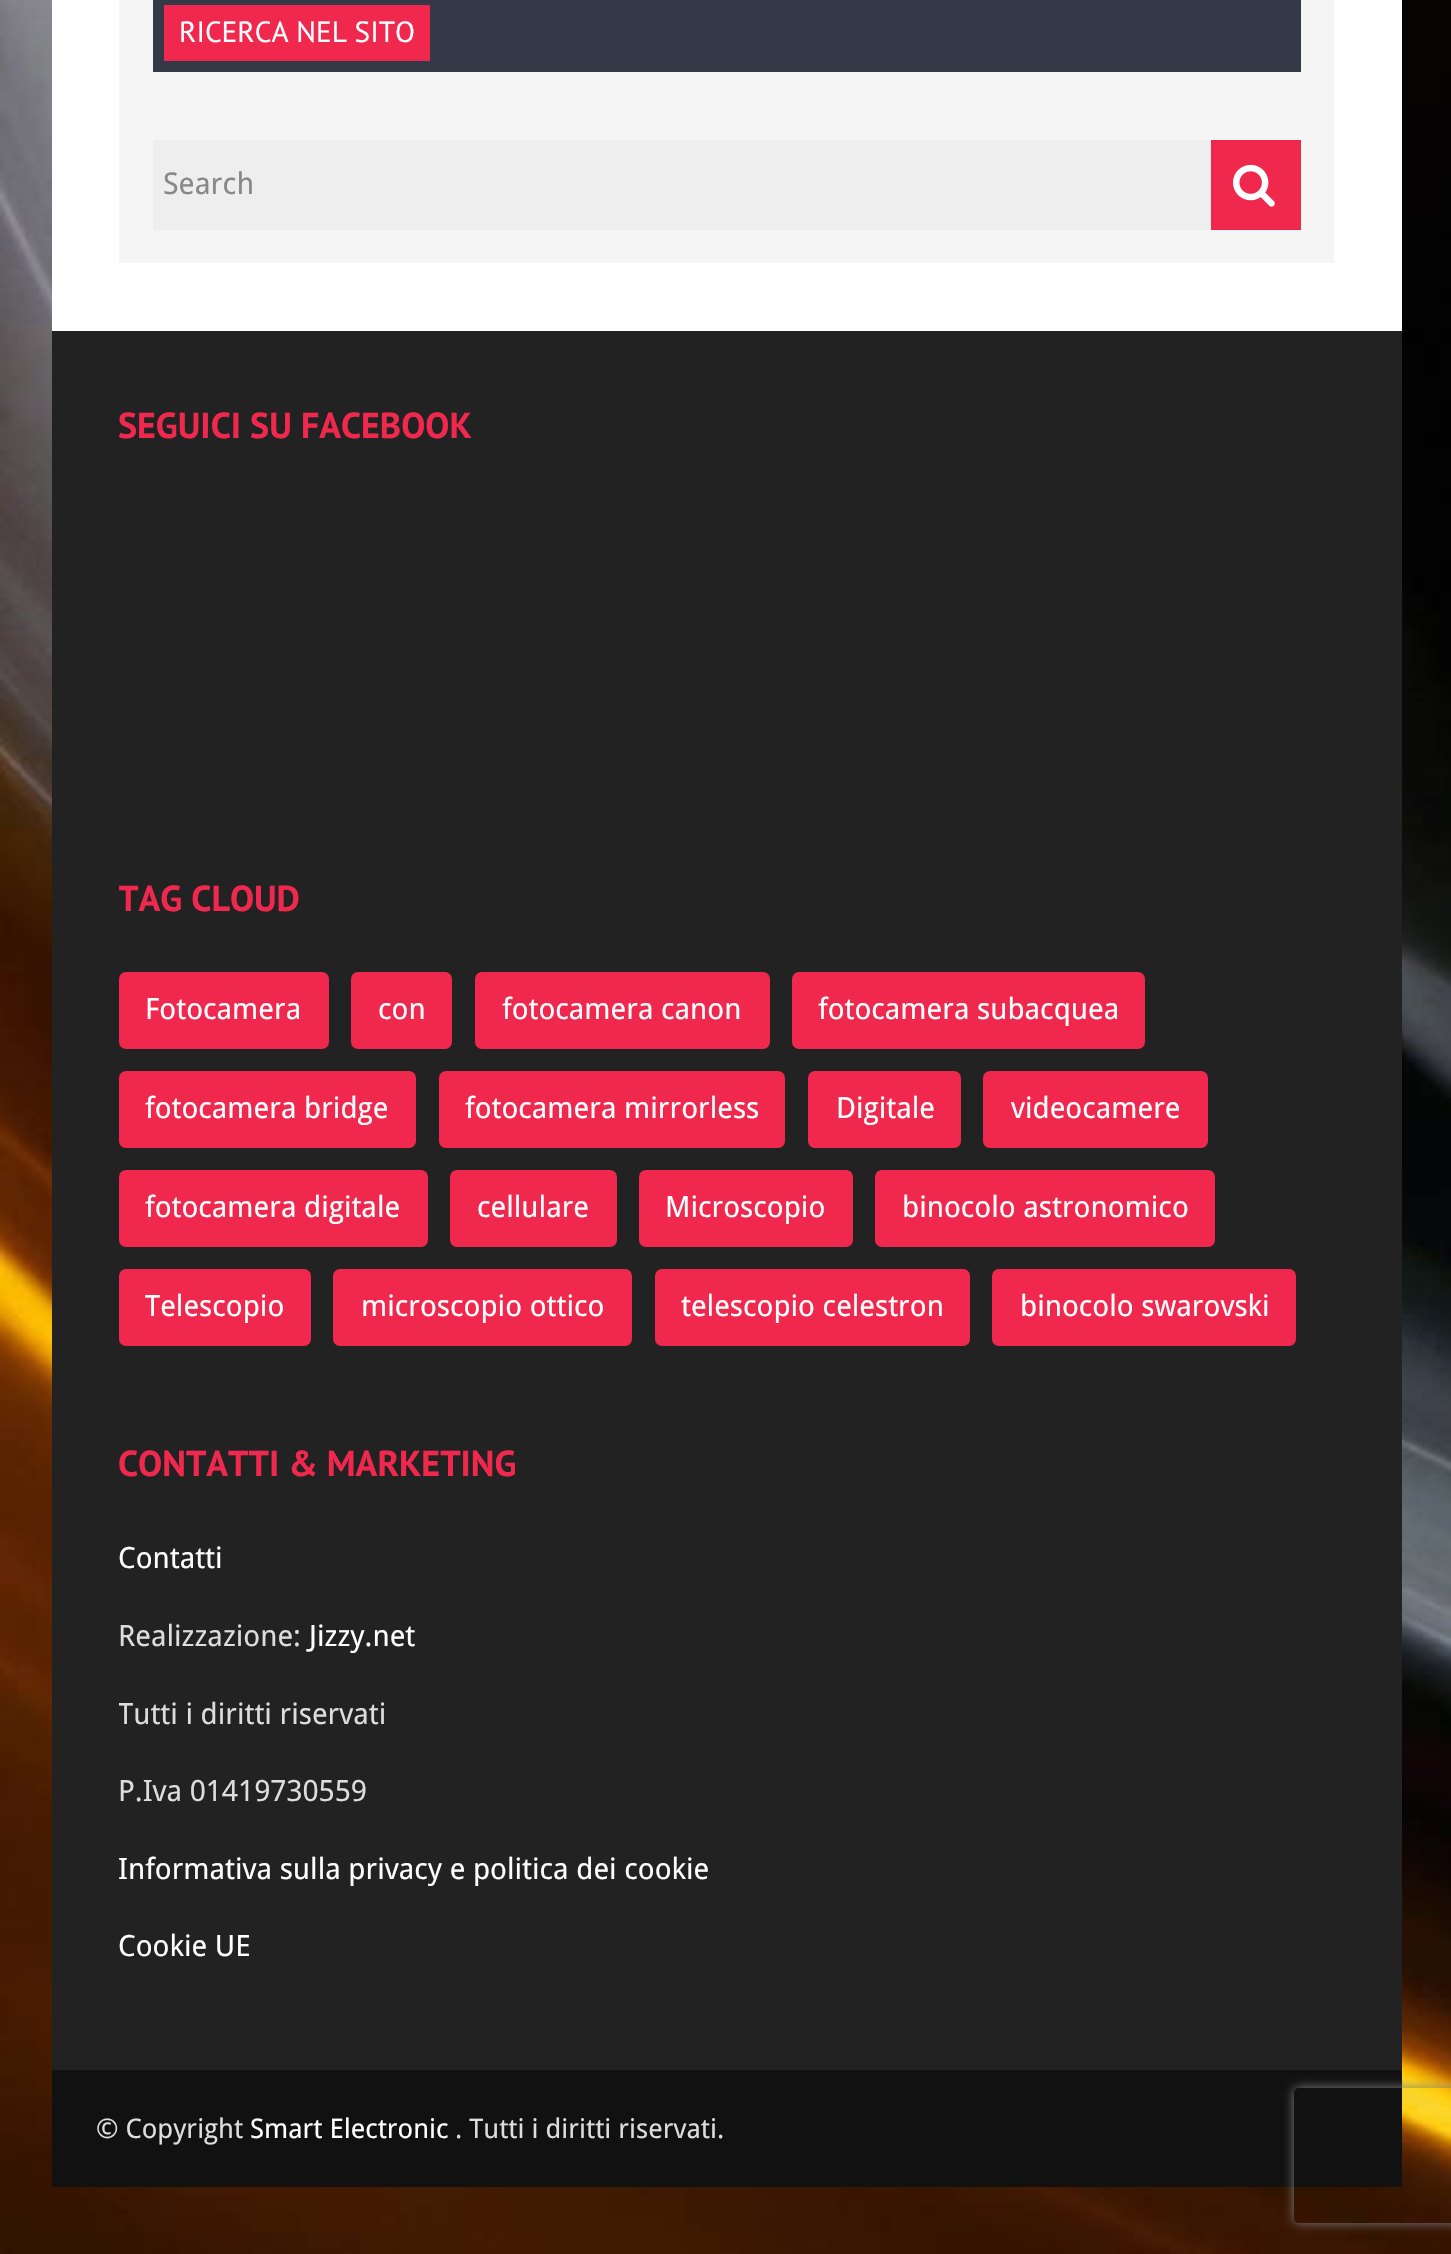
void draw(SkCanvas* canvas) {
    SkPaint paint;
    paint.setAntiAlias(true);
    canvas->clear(0xFFFFFFFF);
    canvas->drawImageRect(SkImages::DeferredFromEncodedData(SkData::MakeFromFileName("img1.png")), SkRect::MakeXYWH(0, 0, 1451, 2254), SkSamplingOptions());
    paint.setColor(0xFFFFFFFF);
    canvas->drawRect(SkRect::MakeXYWH(52, 0, 1350, 331), paint);
    paint.setColor(0xFFF5F5F5);
    canvas->drawRect(SkRect::MakeXYWH(119, 0, 1215, 263), paint);
    paint.setColor(0xFF333946);
    canvas->drawRect(SkRect::MakeXYWH(153, 0, 1148, 72), paint);
    paint.setColor(0xFFF1284E);
    canvas->drawRect(SkRect::MakeXYWH(164, 5, 266, 56), paint);
    SkFont font1(fontMgr->matchFamilyStyle("PT Sans", SkFontStyle::Normal()), 29.25f);
    font1.setSubpixel(true);
    paint.setColor(0xFFFFFFFF);
    canvas->drawString("RICERCA NEL SITO", 179, 42, font1, paint);
    paint.setColor(0xFFEEEEEE);
    canvas->drawRect(SkRect::MakeXYWH(153, 140, 1058, 90), paint);
    SkFont font2(fontMgr->matchFamilyStyle("Droid Sans", SkFontStyle::Normal()), 30);
    font2.setSubpixel(true);
    paint.setColor(0xFF888888);
    canvas->drawString("Search", 163, 194, font2, paint);
    paint.setColor(0xFFF1284E);
    canvas->drawRect(SkRect::MakeXYWH(1211, 140, 90, 90), paint);
    canvas->drawImageRect(SkImages::DeferredFromEncodedData(SkData::MakeFromFileName("img2.png")), SkRect::MakeXYWH(1233, 164, 42, 43), SkSamplingOptions());
    paint.setColor(0xFF222222);
    canvas->drawRect(SkRect::MakeXYWH(52, 331, 1350, 1739), paint);
    SkFont font3(fontMgr->matchFamilyStyle("PT Sans", SkFontStyle::Bold()), 36);
    font3.setSubpixel(true);
    paint.setColor(0xFFF1284E);
    canvas->drawString("SEGUICI SU FACEBOOK", 118, 438, font3, paint);
    canvas->save();
    canvas->clipRect(SkRect::MakeXYWH(119, 871, 1215, 497));
    canvas->drawString("TAG CLOUD", 118, 911, font3, paint);
    canvas->restore();
    canvas->drawRoundRect(SkRect::MakeXYWH(121.5f, 974.5f, 205, 72), 4.5f, 4.5f, paint);
    paint.setStyle(SkPaint::kStroke_Style);
    paint.setStrokeWidth(5);
    canvas->drawRoundRect(SkRect::MakeXYWH(121.5f, 974.5f, 205, 72), 4.5f, 4.5f, paint);
    SkFont font4(fontMgr->matchFamilyStyle("Droid Sans", SkFontStyle::Normal()), 29.25f);
    font4.setSubpixel(true);
    paint.setStyle(SkPaint::kFill_Style);
    paint.setColor(0xFFFFFFFF);
    canvas->drawString("Fotocamera", 145, 1019, font4, paint);
    paint.setColor(0xFFF1284E);
    canvas->drawRoundRect(SkRect::MakeXYWH(353.5f, 974.5f, 96, 72), 4.5f, 4.5f, paint);
    paint.setStyle(SkPaint::kStroke_Style);
    canvas->drawRoundRect(SkRect::MakeXYWH(353.5f, 974.5f, 96, 72), 4.5f, 4.5f, paint);
    paint.setStyle(SkPaint::kFill_Style);
    paint.setColor(0xFFFFFFFF);
    canvas->drawString("con", 378, 1019, font4, paint);
    paint.setColor(0xFFF1284E);
    canvas->drawRoundRect(SkRect::MakeXYWH(477.5f, 974.5f, 290, 72), 4.5f, 4.5f, paint);
    paint.setStyle(SkPaint::kStroke_Style);
    canvas->drawRoundRect(SkRect::MakeXYWH(477.5f, 974.5f, 290, 72), 4.5f, 4.5f, paint);
    paint.setStyle(SkPaint::kFill_Style);
    paint.setColor(0xFFFFFFFF);
    canvas->drawString("fotocamera canon", 502, 1019, font4, paint);
    paint.setColor(0xFFF1284E);
    canvas->drawRoundRect(SkRect::MakeXYWH(794.5f, 974.5f, 348, 72), 4.5f, 4.5f, paint);
    paint.setStyle(SkPaint::kStroke_Style);
    canvas->drawRoundRect(SkRect::MakeXYWH(794.5f, 974.5f, 348, 72), 4.5f, 4.5f, paint);
    paint.setStyle(SkPaint::kFill_Style);
    paint.setColor(0xFFFFFFFF);
    canvas->drawString("fotocamera subacquea", 818, 1019, font4, paint);
    paint.setColor(0xFFF1284E);
    canvas->drawRoundRect(SkRect::MakeXYWH(121.5f, 1073.5f, 292, 72), 4.5f, 4.5f, paint);
    paint.setStyle(SkPaint::kStroke_Style);
    canvas->drawRoundRect(SkRect::MakeXYWH(121.5f, 1073.5f, 292, 72), 4.5f, 4.5f, paint);
    paint.setStyle(SkPaint::kFill_Style);
    paint.setColor(0xFFFFFFFF);
    canvas->drawString("fotocamera bridge", 145, 1118, font4, paint);
    paint.setColor(0xFFF1284E);
    canvas->drawRoundRect(SkRect::MakeXYWH(441.5f, 1073.5f, 341, 72), 4.5f, 4.5f, paint);
    paint.setStyle(SkPaint::kStroke_Style);
    canvas->drawRoundRect(SkRect::MakeXYWH(441.5f, 1073.5f, 341, 72), 4.5f, 4.5f, paint);
    paint.setStyle(SkPaint::kFill_Style);
    paint.setColor(0xFFFFFFFF);
    canvas->drawString("fotocamera mirrorless", 465, 1118, font4, paint);
    paint.setColor(0xFFF1284E);
    canvas->drawRoundRect(SkRect::MakeXYWH(810.5f, 1073.5f, 148, 72), 4.5f, 4.5f, paint);
    paint.setStyle(SkPaint::kStroke_Style);
    canvas->drawRoundRect(SkRect::MakeXYWH(810.5f, 1073.5f, 148, 72), 4.5f, 4.5f, paint);
    paint.setStyle(SkPaint::kFill_Style);
    paint.setColor(0xFFFFFFFF);
    canvas->drawString("Digitale", 836, 1118, font4, paint);
    paint.setColor(0xFFF1284E);
    canvas->drawRoundRect(SkRect::MakeXYWH(985.5f, 1073.5f, 220, 72), 4.5f, 4.5f, paint);
    paint.setStyle(SkPaint::kStroke_Style);
    canvas->drawRoundRect(SkRect::MakeXYWH(985.5f, 1073.5f, 220, 72), 4.5f, 4.5f, paint);
    paint.setStyle(SkPaint::kFill_Style);
    paint.setColor(0xFFFFFFFF);
    canvas->drawString("videocamere", 1011, 1118, font4, paint);
    paint.setColor(0xFFF1284E);
    canvas->drawRoundRect(SkRect::MakeXYWH(121.5f, 1172.5f, 304, 72), 4.5f, 4.5f, paint);
    paint.setStyle(SkPaint::kStroke_Style);
    canvas->drawRoundRect(SkRect::MakeXYWH(121.5f, 1172.5f, 304, 72), 4.5f, 4.5f, paint);
    paint.setStyle(SkPaint::kFill_Style);
    paint.setColor(0xFFFFFFFF);
    canvas->drawString("fotocamera digitale", 145, 1217, font4, paint);
    paint.setColor(0xFFF1284E);
    canvas->drawRoundRect(SkRect::MakeXYWH(452.5f, 1172.5f, 162, 72), 4.5f, 4.5f, paint);
    paint.setStyle(SkPaint::kStroke_Style);
    canvas->drawRoundRect(SkRect::MakeXYWH(452.5f, 1172.5f, 162, 72), 4.5f, 4.5f, paint);
    paint.setStyle(SkPaint::kFill_Style);
    paint.setColor(0xFFFFFFFF);
    canvas->drawString("cellulare", 477, 1217, font4, paint);
    paint.setColor(0xFFF1284E);
    canvas->drawRoundRect(SkRect::MakeXYWH(641.5f, 1172.5f, 209, 72), 4.5f, 4.5f, paint);
    paint.setStyle(SkPaint::kStroke_Style);
    canvas->drawRoundRect(SkRect::MakeXYWH(641.5f, 1172.5f, 209, 72), 4.5f, 4.5f, paint);
    paint.setStyle(SkPaint::kFill_Style);
    paint.setColor(0xFFFFFFFF);
    canvas->drawString("Microscopio", 665, 1217, font4, paint);
    paint.setColor(0xFFF1284E);
    canvas->drawRoundRect(SkRect::MakeXYWH(877.5f, 1172.5f, 335, 72), 4.5f, 4.5f, paint);
    paint.setStyle(SkPaint::kStroke_Style);
    canvas->drawRoundRect(SkRect::MakeXYWH(877.5f, 1172.5f, 335, 72), 4.5f, 4.5f, paint);
    paint.setStyle(SkPaint::kFill_Style);
    paint.setColor(0xFFFFFFFF);
    canvas->drawString("binocolo astronomico", 902, 1217, font4, paint);
    paint.setColor(0xFFF1284E);
    canvas->drawRoundRect(SkRect::MakeXYWH(121.5f, 1271.5f, 187, 72), 4.5f, 4.5f, paint);
    paint.setStyle(SkPaint::kStroke_Style);
    canvas->drawRoundRect(SkRect::MakeXYWH(121.5f, 1271.5f, 187, 72), 4.5f, 4.5f, paint);
    paint.setStyle(SkPaint::kFill_Style);
    paint.setColor(0xFFFFFFFF);
    canvas->drawString("Telescopio", 145, 1316, font4, paint);
    paint.setColor(0xFFF1284E);
    canvas->drawRoundRect(SkRect::MakeXYWH(335.5f, 1271.5f, 294, 72), 4.5f, 4.5f, paint);
    paint.setStyle(SkPaint::kStroke_Style);
    canvas->drawRoundRect(SkRect::MakeXYWH(335.5f, 1271.5f, 294, 72), 4.5f, 4.5f, paint);
    paint.setStyle(SkPaint::kFill_Style);
    paint.setColor(0xFFFFFFFF);
    canvas->drawString("microscopio ottico", 361, 1316, font4, paint);
    paint.setColor(0xFFF1284E);
    canvas->drawRoundRect(SkRect::MakeXYWH(657.5f, 1271.5f, 310, 72), 4.5f, 4.5f, paint);
    paint.setStyle(SkPaint::kStroke_Style);
    canvas->drawRoundRect(SkRect::MakeXYWH(657.5f, 1271.5f, 310, 72), 4.5f, 4.5f, paint);
    paint.setStyle(SkPaint::kFill_Style);
    paint.setColor(0xFFFFFFFF);
    canvas->drawString("telescopio celestron", 681, 1316, font4, paint);
    paint.setColor(0xFFF1284E);
    canvas->drawRoundRect(SkRect::MakeXYWH(994.5f, 1271.5f, 299, 72), 4.5f, 4.5f, paint);
    paint.setStyle(SkPaint::kStroke_Style);
    canvas->drawRoundRect(SkRect::MakeXYWH(994.5f, 1271.5f, 299, 72), 4.5f, 4.5f, paint);
    paint.setStyle(SkPaint::kFill_Style);
    paint.setColor(0xFFFFFFFF);
    canvas->drawString("binocolo swarovski", 1020, 1316, font4, paint);
    paint.setColor(0xFFF1284E);
    canvas->drawString("CONTATTI & MARKETING", 118, 1476, font3, paint);
    paint.setColor(0xFFFFFFFF);
    canvas->drawString("Contatti", 118, 1568, font4, paint);
    paint.setColor(0xFFDDDDDD);
    canvas->drawString("Realizzazione:", 118, 1646, font4, paint);
    paint.setColor(0xFFFFFFFF);
    canvas->drawString("Jizzy.net", 309, 1646, font4, paint);
    canvas->save();
    canvas->clipRect(SkRect::MakeXYWH(119, 1436, 1215, 567));
    paint.setColor(0xFFDDDDDD);
    canvas->drawString("Tutti i diritti riservati", 118, 1724, font4, paint);
    canvas->restore();
    canvas->drawString("P.Iva 01419730559", 118, 1801, font4, paint);
    paint.setColor(0xFFFFFFFF);
    canvas->drawString("Informativa sulla privacy e politica dei cookie", 118, 1879, font4, paint);
    canvas->drawString("Cookie UE", 118, 1956, font4, paint);
    paint.setColor(0xFF111111);
    canvas->drawRect(SkRect::MakeXYWH(52, 2070, 1350, 117), paint);
    SkFont font5(fontMgr->matchFamilyStyle("Droid Sans", SkFontStyle::Normal()), 27);
    font5.setSubpixel(true);
    paint.setColor(0xFFDDDDDD);
    canvas->drawString("© Copyright", 96, 2138, font5, paint);
    paint.setColor(0xFFFFFFFF);
    canvas->drawString("Smart Electronic", 250, 2138, font5, paint);
    paint.setColor(0xFFDDDDDD);
    canvas->drawString(". Tutti i diritti riservati.", 455, 2138, font5, paint);
    canvas->save();
    canvas->clipPath(SkPathBuilder(SkPathFillType::kEvenOdd).moveTo(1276, 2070).lineTo(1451, 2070).lineTo(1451, 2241).lineTo(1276, 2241).close().moveTo(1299, 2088).lineTo(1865, 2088).cubicTo(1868, 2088, 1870, 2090, 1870, 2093).lineTo(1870, 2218).cubicTo(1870, 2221, 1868, 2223, 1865, 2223).lineTo(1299, 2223).cubicTo(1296, 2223, 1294, 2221, 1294, 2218).lineTo(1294, 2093).cubicTo(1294, 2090, 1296, 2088, 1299, 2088).close().detach(), true);
    paint.setColor(0xFF808080);
    paint.setMaskFilter(SkMaskFilter::MakeBlur(kNormal_SkBlurStyle, 5.5f));
    canvas->drawRoundRect(SkRect::MakeXYWH(1294, 2088, 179, 135), 5, 5, paint);
    paint.setMaskFilter(nullptr);
    canvas->restore();
}
